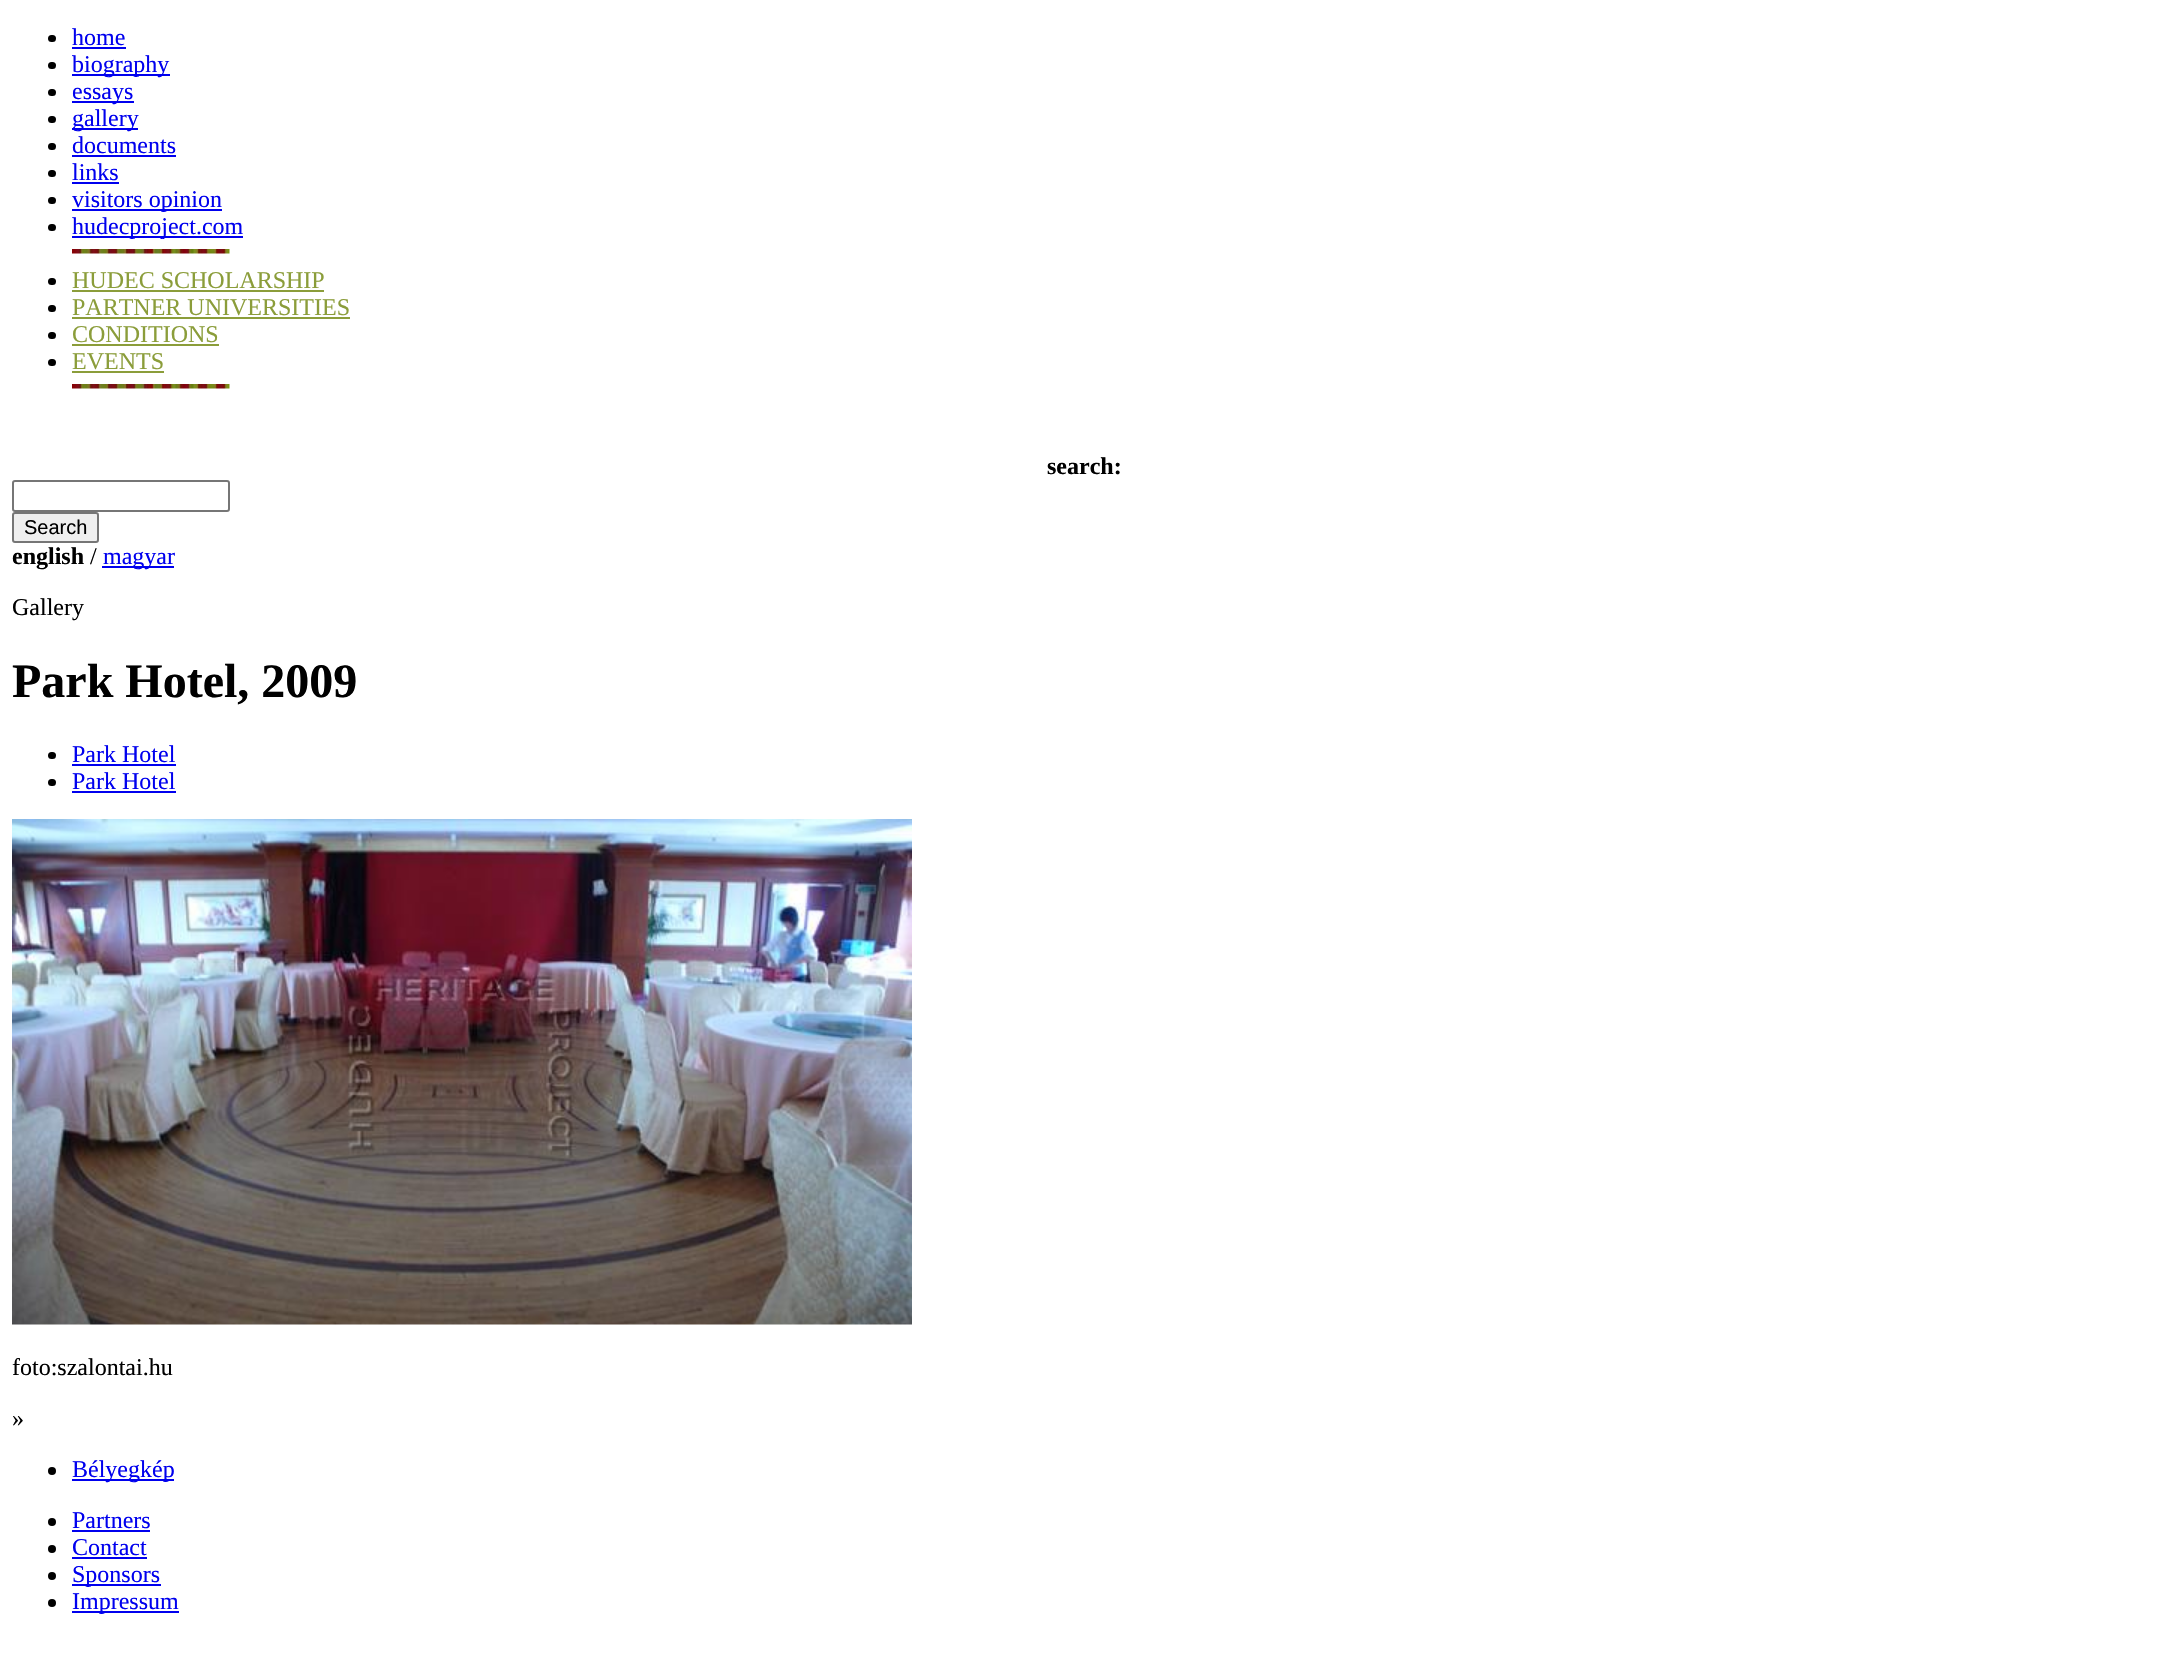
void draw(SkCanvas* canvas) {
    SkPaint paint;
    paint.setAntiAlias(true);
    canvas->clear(0xFFFFFFFF);
    paint.setColor(0xFF000000);
    canvas->drawRoundRect(SkRect::MakeXYWH(48, 35, 8, 7), 3.5f, 3.5f, paint);
    SkFont font1(fontMgr->matchFamilyStyle("Liberation Serif", SkFontStyle::Normal()), 24);
    font1.setSubpixel(true);
    paint.setColor(0xFF0000EE);
    canvas->drawString("home", 72, 45, font1, paint);
    canvas->drawRect(SkRect::MakeXYWH(72, 47, 54, 2), paint);
    paint.setColor(0xFF000000);
    canvas->drawRoundRect(SkRect::MakeXYWH(48, 62, 8, 7), 3.5f, 3.5f, paint);
    paint.setColor(0xFF0000EE);
    canvas->drawRect(SkRect::MakeXYWH(72, 74, 98, 2), paint);
    canvas->drawString("biography", 72, 72, font1, paint);
    paint.setColor(0xFF000000);
    canvas->drawRoundRect(SkRect::MakeXYWH(48, 89, 8, 7), 3.5f, 3.5f, paint);
    paint.setColor(0xFF0000EE);
    canvas->drawRect(SkRect::MakeXYWH(72, 101, 62, 2), paint);
    canvas->drawString("essays", 72, 99, font1, paint);
    paint.setColor(0xFF000000);
    canvas->drawRoundRect(SkRect::MakeXYWH(48, 116, 8, 7), 3.5f, 3.5f, paint);
    paint.setColor(0xFF0000EE);
    canvas->drawRect(SkRect::MakeXYWH(72, 128, 66, 2), paint);
    canvas->drawString("gallery", 72, 126, font1, paint);
    paint.setColor(0xFF000000);
    canvas->drawRoundRect(SkRect::MakeXYWH(48, 143, 8, 7), 3.5f, 3.5f, paint);
    paint.setColor(0xFF0000EE);
    canvas->drawString("documents", 72, 153, font1, paint);
    canvas->drawRect(SkRect::MakeXYWH(72, 155, 104, 2), paint);
    paint.setColor(0xFF000000);
    canvas->drawRoundRect(SkRect::MakeXYWH(48, 170, 8, 7), 3.5f, 3.5f, paint);
    paint.setColor(0xFF0000EE);
    canvas->drawString("links", 72, 180, font1, paint);
    canvas->drawRect(SkRect::MakeXYWH(72, 182, 47, 2), paint);
    paint.setColor(0xFF000000);
    canvas->drawRoundRect(SkRect::MakeXYWH(48, 197, 8, 7), 3.5f, 3.5f, paint);
    paint.setColor(0xFF0000EE);
    canvas->drawRect(SkRect::MakeXYWH(72, 209, 150, 2), paint);
    canvas->drawString("visitors opinion", 72, 207, font1, paint);
    paint.setColor(0xFF000000);
    canvas->drawRoundRect(SkRect::MakeXYWH(48, 224, 8, 7), 3.5f, 3.5f, paint);
    paint.setColor(0xFF0000EE);
    canvas->drawRect(SkRect::MakeXYWH(72, 236, 171, 2), paint);
    canvas->drawString("hudecproject.com", 72, 234, font1, paint);
    canvas->drawImageRect(SkImages::DeferredFromEncodedData(SkData::MakeFromFileName("img1.png")), SkRect::MakeXYWH(72, 249, 158, 5), SkSamplingOptions());
    paint.setColor(0xFF000000);
    canvas->drawRoundRect(SkRect::MakeXYWH(48, 278, 8, 7), 3.5f, 3.5f, paint);
    paint.setColor(0xFF8B9D3A);
    canvas->drawString("HUDEC SCHOLARSHIP", 72, 288, font1, paint);
    canvas->drawRect(SkRect::MakeXYWH(72, 290, 252, 2), paint);
    paint.setColor(0xFF000000);
    canvas->drawRoundRect(SkRect::MakeXYWH(48, 305, 8, 7), 3.5f, 3.5f, paint);
    paint.setColor(0xFF8B9D3A);
    canvas->drawString("PARTNER UNIVERSITIES", 72, 315, font1, paint);
    canvas->drawRect(SkRect::MakeXYWH(72, 317, 278, 2), paint);
    paint.setColor(0xFF000000);
    canvas->drawRoundRect(SkRect::MakeXYWH(48, 332, 8, 7), 3.5f, 3.5f, paint);
    paint.setColor(0xFF8B9D3A);
    canvas->drawString("CONDITIONS", 72, 342, font1, paint);
    canvas->drawRect(SkRect::MakeXYWH(72, 344, 147, 2), paint);
    paint.setColor(0xFF000000);
    canvas->drawRoundRect(SkRect::MakeXYWH(48, 359, 8, 7), 3.5f, 3.5f, paint);
    paint.setColor(0xFF8B9D3A);
    canvas->drawString("EVENTS", 72, 369, font1, paint);
    canvas->drawRect(SkRect::MakeXYWH(72, 371, 92, 2), paint);
    canvas->drawImageRect(SkImages::DeferredFromEncodedData(SkData::MakeFromFileName("img1.png")), SkRect::MakeXYWH(72, 384, 158, 5), SkSamplingOptions());
    SkFont font2(fontMgr->matchFamilyStyle("Liberation Serif", SkFontStyle::Bold()), 24);
    font2.setSubpixel(true);
    paint.setColor(0xFF000000);
    canvas->drawString("search:", 1047, 474, font2, paint);
    paint.setStyle(SkPaint::kStroke_Style);
    paint.setStrokeWidth(2);
    paint.setColor(0xFF767676);
    canvas->drawRoundRect(SkRect::MakeXYWH(13, 481, 216, 30), 2, 2, paint);
    paint.setStyle(SkPaint::kFill_Style);
    paint.setColor(0xFFEFEFEF);
    canvas->drawRoundRect(SkRect::MakeXYWH(13, 513, 85, 29), 2, 2, paint);
    paint.setStyle(SkPaint::kStroke_Style);
    paint.setColor(0xFF767676);
    canvas->drawRoundRect(SkRect::MakeXYWH(13, 513, 85, 29), 2, 2, paint);
    SkFont font3(fontMgr->matchFamilyStyle("Liberation Sans", SkFontStyle::Normal()), 20);
    font3.setSubpixel(true);
    paint.setStyle(SkPaint::kFill_Style);
    paint.setColor(0xFF000000);
    canvas->drawString("Search", 24, 534, font3, paint);
    canvas->drawString("english", 12, 564, font2, paint);
    canvas->drawString("/", 90, 564, font1, paint);
    paint.setColor(0xFF0000EE);
    canvas->drawRect(SkRect::MakeXYWH(102, 566, 72, 2), paint);
    canvas->drawString("magyar", 103, 564, font1, paint);
    paint.setColor(0xFF000000);
    canvas->drawString("Gallery", 12, 615, font1, paint);
    SkFont font4(fontMgr->matchFamilyStyle("Liberation Serif", SkFontStyle::Bold()), 48);
    font4.setSubpixel(true);
    canvas->drawString("Park Hotel, 2009", 12, 697, font4, paint);
    canvas->drawRoundRect(SkRect::MakeXYWH(48, 752, 8, 7), 3.5f, 3.5f, paint);
    paint.setColor(0xFF0000EE);
    canvas->drawString("Park Hotel", 72, 762, font1, paint);
    canvas->drawRect(SkRect::MakeXYWH(72, 764, 104, 2), paint);
    paint.setColor(0xFF000000);
    canvas->drawRoundRect(SkRect::MakeXYWH(48, 779, 8, 7), 3.5f, 3.5f, paint);
    paint.setColor(0xFF0000EE);
    canvas->drawString("Park Hotel", 72, 789, font1, paint);
    canvas->drawRect(SkRect::MakeXYWH(72, 791, 104, 2), paint);
    canvas->drawImageRect(SkImages::DeferredFromEncodedData(SkData::MakeFromFileName("img2.png")), SkRect::MakeXYWH(12, 819, 900, 506), SkSamplingOptions());
    paint.setColor(0xFF000000);
    canvas->drawString("foto:szalontai.hu", 12, 1375, font1, paint);
    canvas->drawString("»", 12, 1426, font1, paint);
    canvas->drawCircle(52, 1471, 4, paint);
    paint.setColor(0xFF0000EE);
    canvas->drawRect(SkRect::MakeXYWH(72, 1479, 102, 2), paint);
    canvas->drawString("Bélyegkép", 72, 1477, font1, paint);
    paint.setColor(0xFF000000);
    canvas->drawCircle(52, 1522, 4, paint);
    paint.setColor(0xFF0000EE);
    canvas->drawString("Partners", 72, 1528, font1, paint);
    canvas->drawRect(SkRect::MakeXYWH(72, 1530, 78, 2), paint);
    paint.setColor(0xFF000000);
    canvas->drawCircle(52, 1549, 4, paint);
    paint.setColor(0xFF0000EE);
    canvas->drawString("Contact", 72, 1555, font1, paint);
    canvas->drawRect(SkRect::MakeXYWH(72, 1557, 75, 2), paint);
    paint.setColor(0xFF000000);
    canvas->drawCircle(52, 1576, 4, paint);
    paint.setColor(0xFF0000EE);
    canvas->drawRect(SkRect::MakeXYWH(72, 1584, 89, 2), paint);
    canvas->drawString("Sponsors", 72, 1582, font1, paint);
    paint.setColor(0xFF000000);
    canvas->drawCircle(52, 1603, 4, paint);
    paint.setColor(0xFF0000EE);
    canvas->drawRect(SkRect::MakeXYWH(72, 1611, 107, 2), paint);
    canvas->drawString("Impressum", 72, 1609, font1, paint);
}
